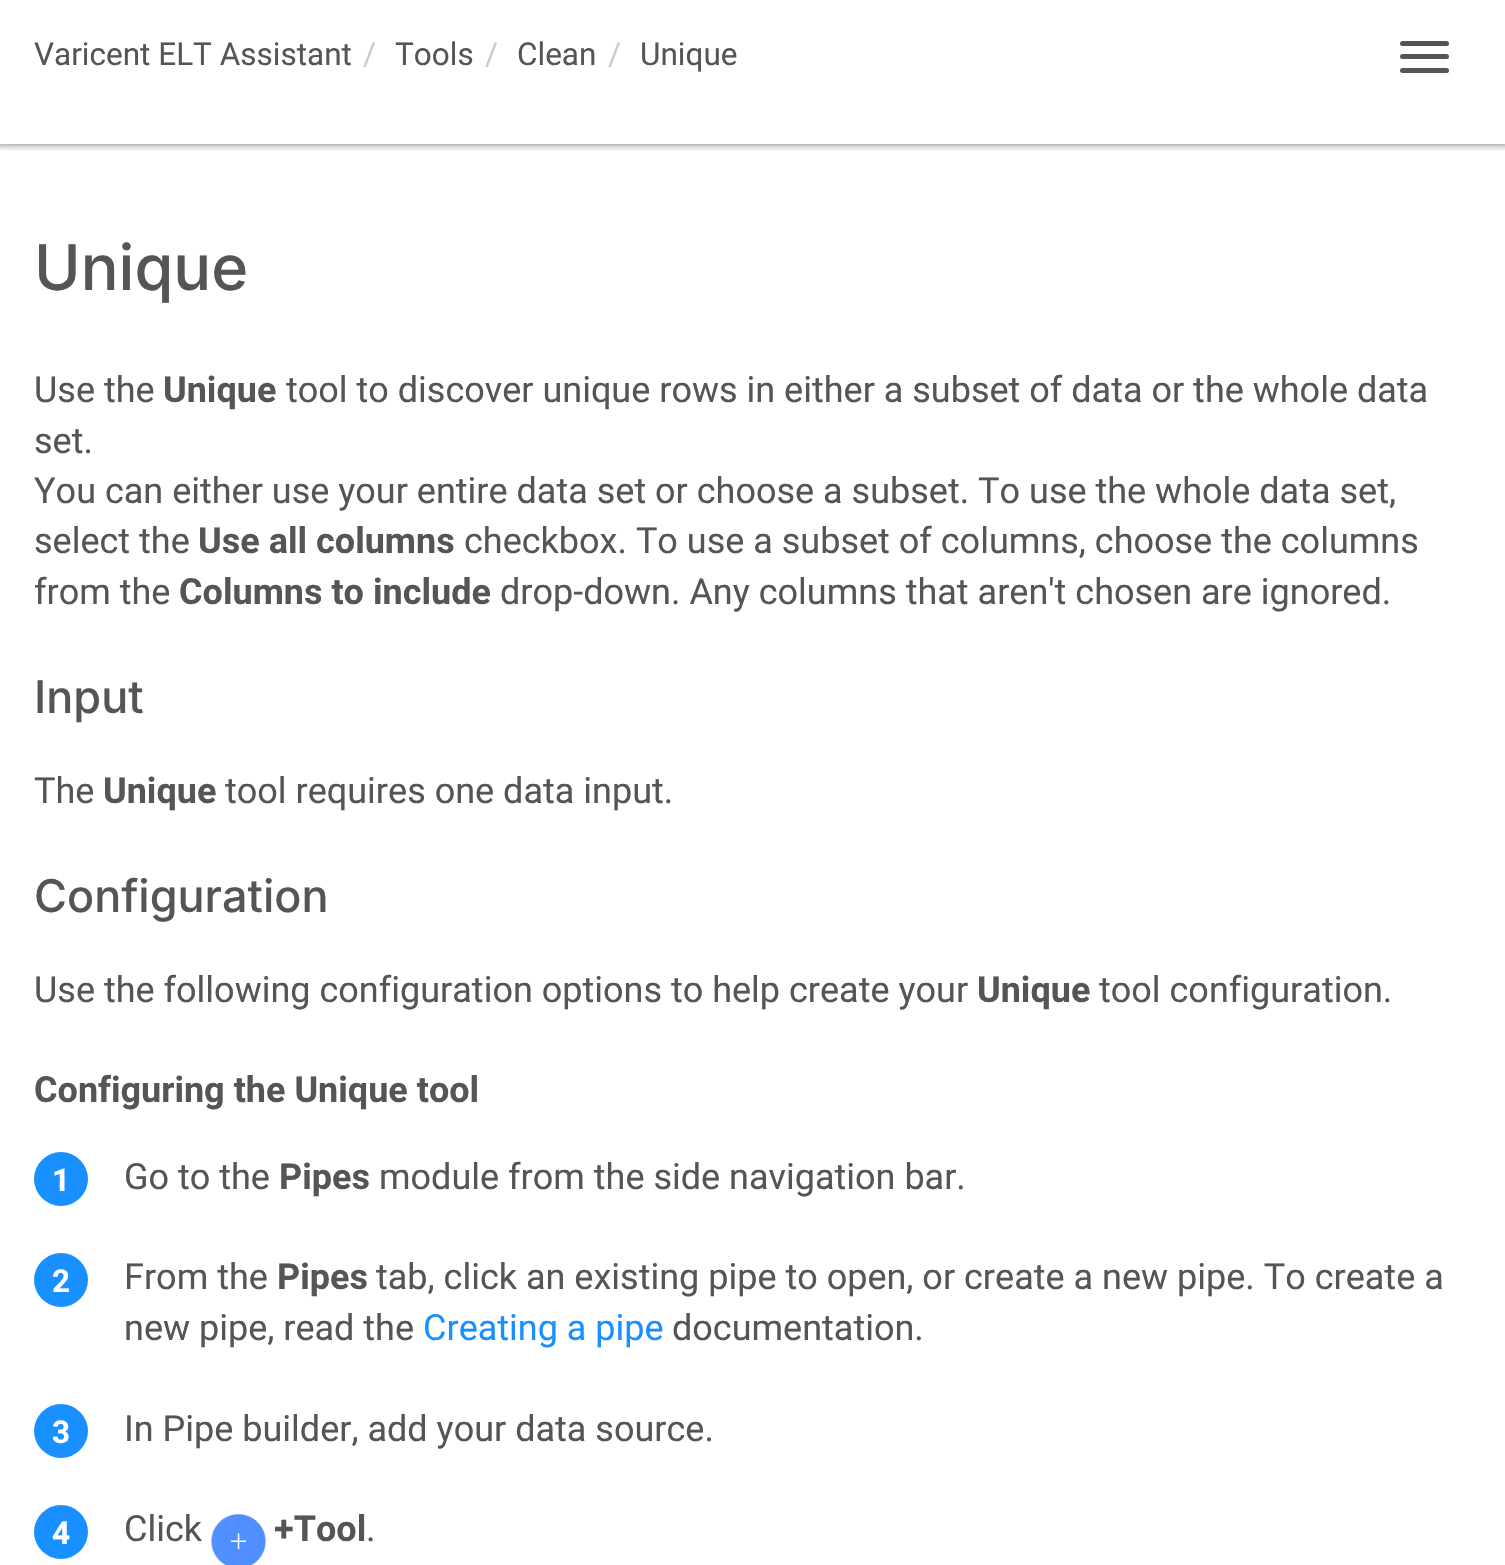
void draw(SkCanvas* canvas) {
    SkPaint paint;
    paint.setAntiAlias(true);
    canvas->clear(0xFFFFFFFF);
    canvas->save();
    canvas->clipRect(SkRect::MakeXYWH(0, 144, 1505, 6));
    paint.setColor(0x14000000);
    paint.setMaskFilter(SkMaskFilter::MakeBlur(kNormal_SkBlurStyle, 5.5f));
    canvas->drawRect(SkRect::MakeXYWH(-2, -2, 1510, 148), paint);
    paint.setMaskFilter(nullptr);
    canvas->restore();
    canvas->save();
    canvas->clipRect(SkRect::MakeXYWH(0, 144, 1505, 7));
    paint.setColor(0x1A000000);
    paint.setMaskFilter(SkMaskFilter::MakeBlur(kNormal_SkBlurStyle, 2));
    canvas->drawRect(SkRect::MakeXYWH(-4, -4, 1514, 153), paint);
    paint.setMaskFilter(nullptr);
    canvas->restore();
    canvas->save();
    canvas->clipRect(SkRect::MakeXYWH(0, 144, 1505, 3));
    paint.setColor(0x24000000);
    paint.setMaskFilter(SkMaskFilter::MakeBlur(kNormal_SkBlurStyle, 1));
    canvas->drawRect(SkRect::MakeXYWH(-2, -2, 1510, 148), paint);
    paint.setMaskFilter(nullptr);
    canvas->restore();
    SkFont font1(fontMgr->matchFamilyStyle("Roboto", SkFontStyle::Normal()), 31.5f);
    font1.setSubpixel(true);
    paint.setColor(0xFF555555);
    canvas->drawString("Varicent ELT Assistant", 34, 65, font1, paint);
    paint.setColor(0xFFCCCCCC);
    canvas->drawString("/", 363, 65, font1, paint);
    paint.setColor(0xFF555555);
    canvas->drawString("Tools", 395, 65, font1, paint);
    paint.setColor(0xFFCCCCCC);
    canvas->drawString("/", 485, 65, font1, paint);
    paint.setColor(0xFF555555);
    canvas->drawString("Clean", 517, 65, font1, paint);
    paint.setColor(0xFFCCCCCC);
    canvas->drawString("/", 608, 65, font1, paint);
    paint.setColor(0xFF555555);
    canvas->drawString("Unique", 640, 65, font1, paint);
    canvas->drawRoundRect(SkRect::MakeXYWH(1400, 41, 49, 5), 2.5f, 2.5f, paint);
    canvas->drawRoundRect(SkRect::MakeXYWH(1400, 54, 49, 5), 2.5f, 2.5f, paint);
    canvas->drawRoundRect(SkRect::MakeXYWH(1400, 68, 49, 5), 2.5f, 2.5f, paint);
    SkFont font2(fontMgr->matchFamilyStyle("Inter", SkFontStyle(500, SkFontStyle::kNormal_Width, SkFontStyle::kUpright_Slant)), 63);
    font2.setSubpixel(true);
    canvas->drawString("Unique", 34, 290, font2, paint);
    SkFont font3(fontMgr->matchFamilyStyle("Roboto", SkFontStyle::Normal()), 36);
    font3.setSubpixel(true);
    canvas->drawString("Use the", 34, 402, font3, paint);
    SkFont font4(fontMgr->matchFamilyStyle("Roboto", SkFontStyle::Bold()), 36);
    font4.setSubpixel(true);
    canvas->drawString("Unique", 163, 402, font4, paint);
    canvas->drawString("tool to discover unique rows in either a subset of data or the whole data", 286, 402, font3, paint);
    canvas->drawString("set.", 34, 453, font3, paint);
    canvas->drawString("You can either use your entire data set or choose a subset. To use the whole data set,", 34, 503, font3, paint);
    canvas->drawString("select the", 34, 553, font3, paint);
    canvas->drawString("Use all columns", 198, 553, font4, paint);
    canvas->drawString("checkbox. To use a subset of columns, choose the columns", 464, 553, font3, paint);
    canvas->drawString("from the", 34, 604, font3, paint);
    canvas->drawString("Columns to include", 179, 604, font4, paint);
    canvas->drawString("drop-down. Any columns that aren't chosen are ignored.", 500, 604, font3, paint);
    SkFont font5(fontMgr->matchFamilyStyle("Inter", SkFontStyle(500, SkFontStyle::kNormal_Width, SkFontStyle::kUpright_Slant)), 45);
    font5.setSubpixel(true);
    canvas->drawString("Input", 34, 713, font5, paint);
    canvas->drawString("The", 34, 803, font3, paint);
    canvas->drawString("Unique", 103, 803, font4, paint);
    canvas->drawString("tool requires one data input.", 225, 803, font3, paint);
    canvas->drawString("Configuration", 34, 912, font5, paint);
    canvas->drawString("Use the following configuration options to help create your", 34, 1002, font3, paint);
    canvas->drawString("Unique", 977, 1002, font4, paint);
    canvas->drawString("tool configuration.", 1099, 1002, font3, paint);
    canvas->drawString("Configuring the Unique tool", 34, 1102, font4, paint);
    paint.setColor(0xFF1890FF);
    canvas->drawCircle(61, 1179, 27, paint);
    SkFont font6(fontMgr->matchFamilyStyle("Roboto", SkFontStyle::Bold()), 31.5f);
    font6.setSubpixel(true);
    paint.setColor(0xFFFFFFFF);
    canvas->drawString("1", 52, 1191, font6, paint);
    paint.setColor(0xFF555555);
    canvas->drawString("Go to the", 124, 1189, font3, paint);
    canvas->drawString("Pipes", 279, 1189, font4, paint);
    canvas->drawString("module from the side navigation bar.", 379, 1189, font3, paint);
    paint.setColor(0xFF1890FF);
    canvas->drawCircle(61, 1280, 27, paint);
    paint.setColor(0xFFFFFFFF);
    canvas->drawString("2", 52, 1292, font6, paint);
    paint.setColor(0xFF555555);
    canvas->drawString("From the", 124, 1289, font3, paint);
    canvas->drawString("Pipes", 277, 1289, font4, paint);
    canvas->drawString("tab, click an existing pipe to open, or create a new pipe. To create a", 376, 1289, font3, paint);
    canvas->drawString("new pipe, read the", 124, 1340, font3, paint);
    paint.setColor(0xFF1890FF);
    canvas->drawString("Creating a pipe", 423, 1340, font3, paint);
    paint.setColor(0xFF555555);
    canvas->drawString("documentation.", 672, 1340, font3, paint);
    paint.setColor(0xFF1890FF);
    canvas->drawCircle(61, 1431, 27, paint);
    paint.setColor(0xFFFFFFFF);
    canvas->drawString("3", 52, 1443, font6, paint);
    paint.setColor(0xFF555555);
    canvas->drawString("In Pipe builder, add your data source.", 124, 1441, font3, paint);
    paint.setColor(0xFF1890FF);
    canvas->drawCircle(61, 1532, 27, paint);
    paint.setColor(0xFFFFFFFF);
    canvas->drawString("4", 52, 1544, font6, paint);
    paint.setColor(0xFF555555);
    canvas->drawString("Click", 124, 1541, font3, paint);
    canvas->drawImageRect(SkImages::DeferredFromEncodedData(SkData::MakeFromFileName("img1.png")), SkRect::MakeXYWH(211, 1514, 55, 51), SkSamplingOptions());
    canvas->drawString("+Tool", 274, 1541, font4, paint);
    canvas->drawString(".", 366, 1541, font3, paint);
}
